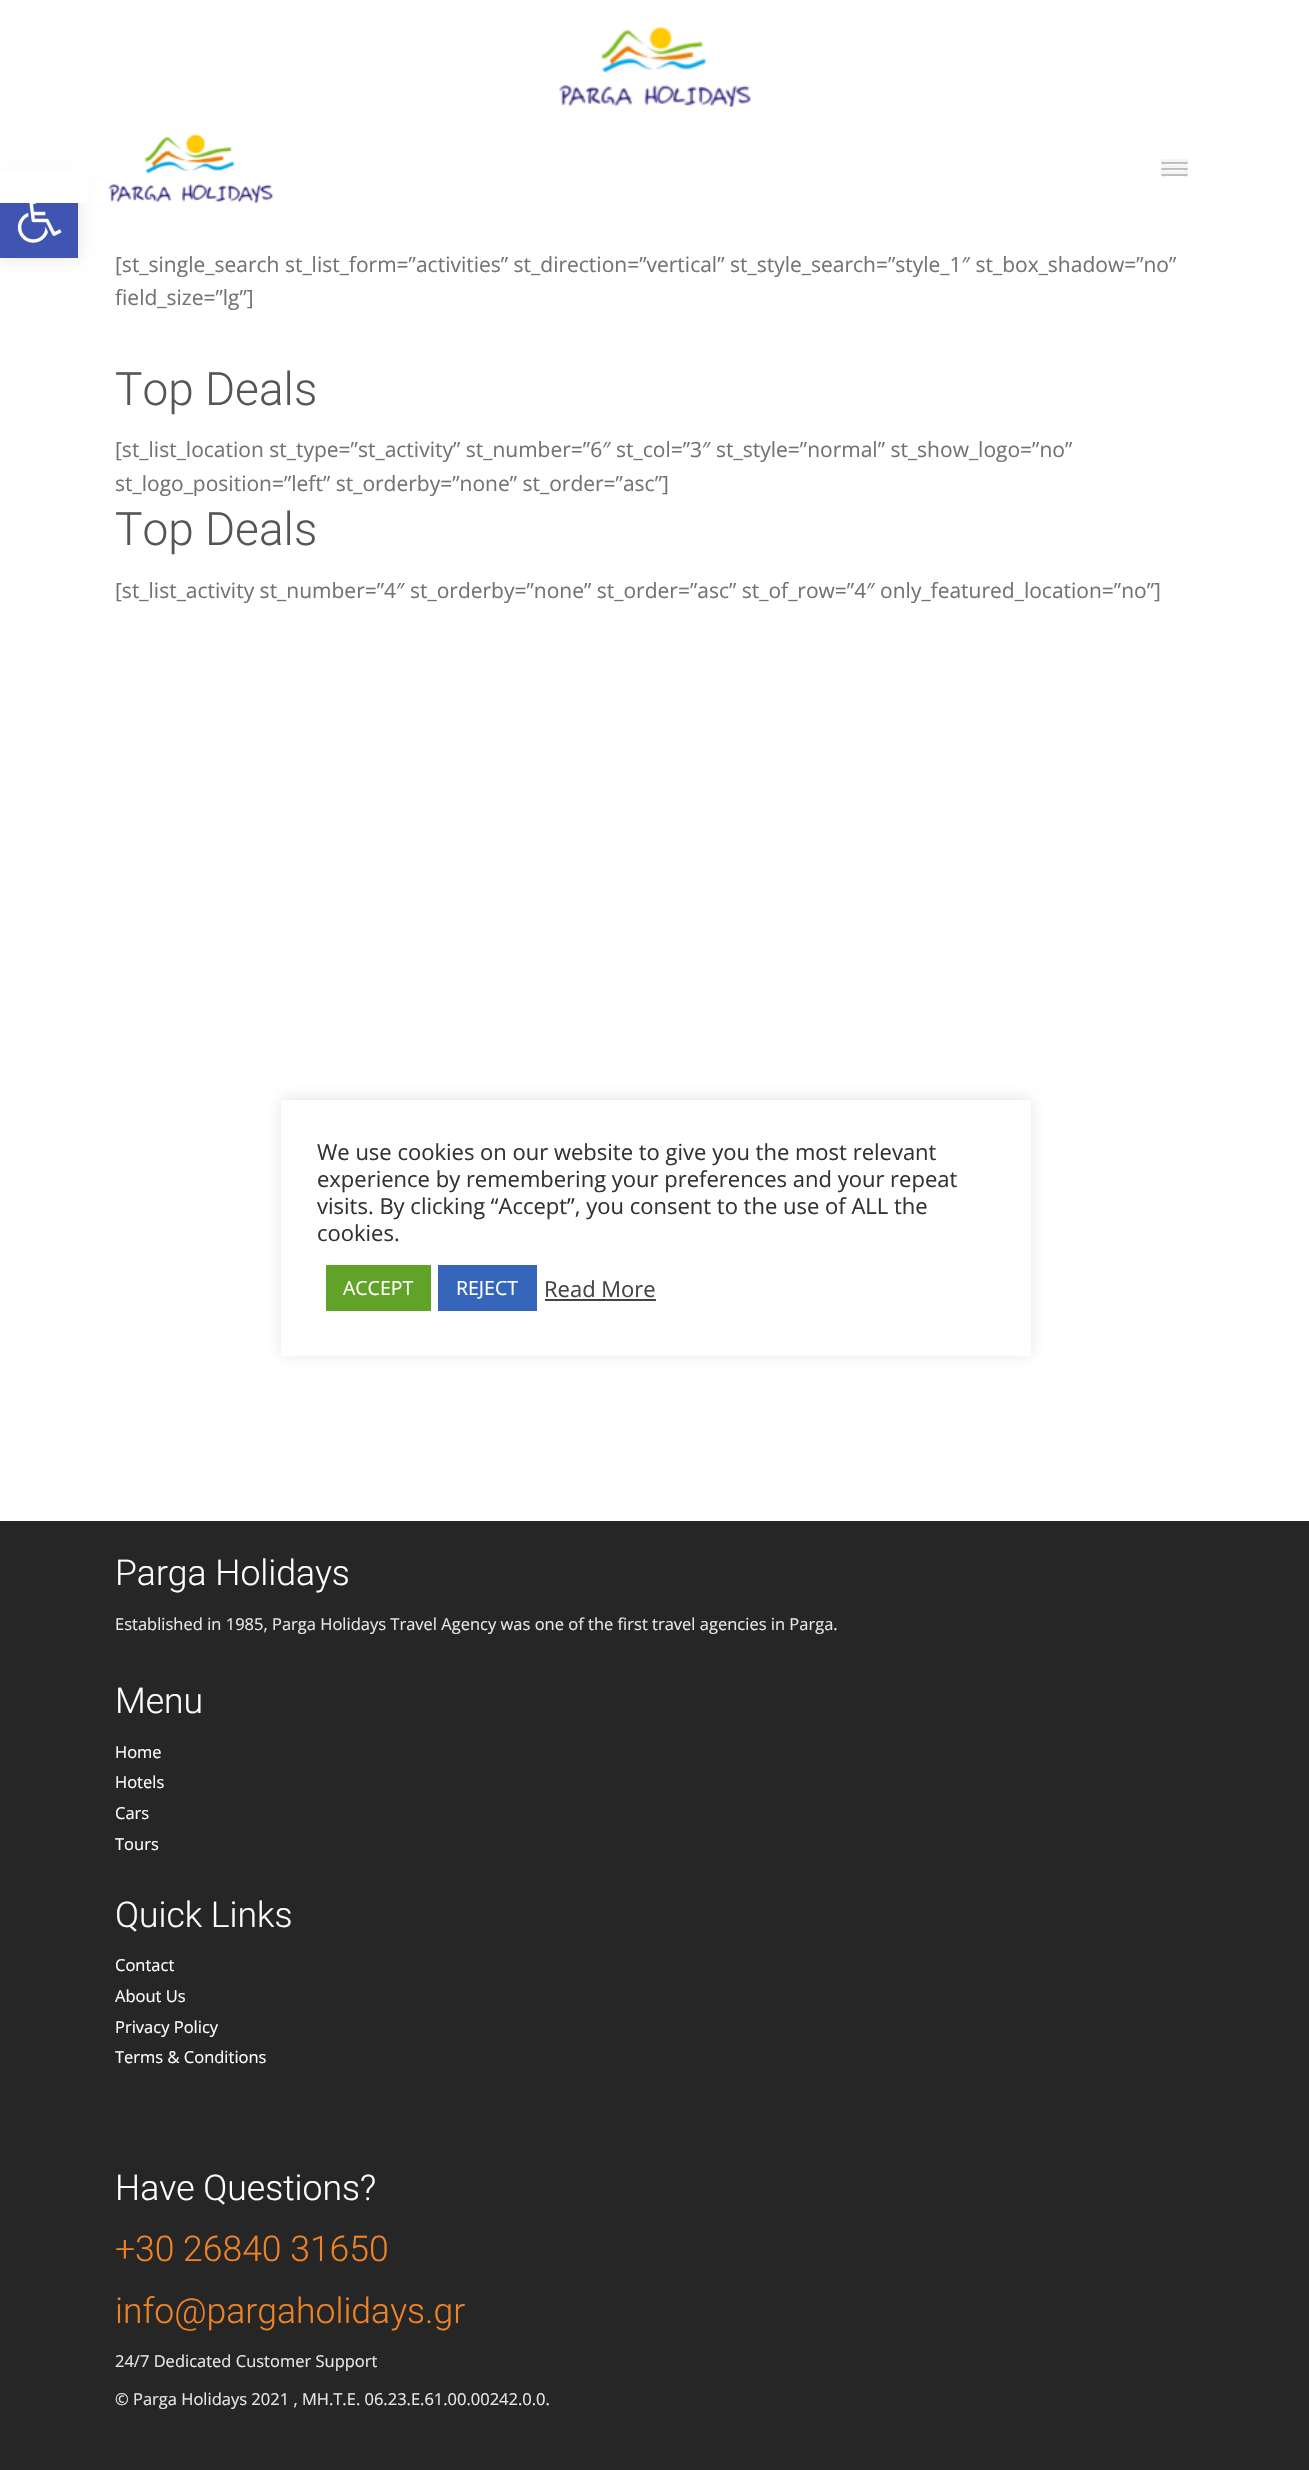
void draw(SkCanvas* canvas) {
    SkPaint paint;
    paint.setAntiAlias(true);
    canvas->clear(0xFFFFFFFF);
    paint.setColor(0x1A000000);
    paint.setMaskFilter(SkMaskFilter::MakeBlur(kNormal_SkBlurStyle, 7.5f));
    canvas->drawRect(SkRect::MakeXYWH(0, 180, 78, 78), paint);
    paint.setMaskFilter(nullptr);
    paint.setColor(0xFFFFFFFF);
    canvas->drawRect(SkRect::MakeXYWH(0, 170, 88, 33), paint);
    canvas->drawImageRect(SkImages::DeferredFromEncodedData(SkData::MakeFromFileName("img1.png")), SkRect::MakeXYWH(559, 26, 193, 81), SkSamplingOptions());
    canvas->drawImageRect(SkImages::DeferredFromEncodedData(SkData::MakeFromFileName("img2.png")), SkRect::MakeXYWH(108, 134, 166, 69), SkSamplingOptions());
    paint.setColor(0xFFBFBFBF);
    canvas->drawPath(SkPathBuilder().moveTo(1161.5f, 161.5f).lineTo(1161, 163).cubicTo(1161.5f, 165, 1166, 164, 1166.5f, 164).lineTo(1182.5f, 164).cubicTo(1183, 164, 1187.5f, 165, 1188, 163).lineTo(1187.5f, 161.5f).lineTo(1186.5f, 162).lineTo(1162.5f, 162).close().detach(), paint);
    paint.setColor(0xFFF5F5F5);
    canvas->drawRoundRect(SkRect::MakeXYWH(1161, 159, 27, 3), 1.5f, 1.5f, paint);
    paint.setColor(0xFFBFBFBF);
    canvas->drawPath(SkPathBuilder().moveTo(1161.5f, 167.5f).lineTo(1161, 169).cubicTo(1161.5f, 171, 1166, 170, 1166.5f, 170).lineTo(1182.5f, 170).cubicTo(1183, 170, 1187.5f, 171, 1188, 169).lineTo(1187.5f, 167.5f).lineTo(1186.5f, 168).lineTo(1162.5f, 168).close().detach(), paint);
    paint.setColor(0xFFF5F5F5);
    canvas->drawRoundRect(SkRect::MakeXYWH(1161, 165, 27, 3), 1.5f, 1.5f, paint);
    paint.setColor(0xFFBFBFBF);
    canvas->drawPath(SkPathBuilder().moveTo(1161.5f, 173.5f).lineTo(1161, 175).cubicTo(1161.5f, 177, 1166, 176, 1166.5f, 176).lineTo(1182.5f, 176).cubicTo(1183, 176, 1187.5f, 177, 1188, 175).lineTo(1187.5f, 173.5f).lineTo(1186.5f, 174).lineTo(1162.5f, 174).close().detach(), paint);
    paint.setColor(0xFFF5F5F5);
    canvas->drawRoundRect(SkRect::MakeXYWH(1161, 171, 27, 3), 1.5f, 1.5f, paint);
    paint.setColor(0xFF4054B2);
    canvas->drawRect(SkRect::MakeXYWH(0, 203, 78, 55), paint);
    canvas->drawImageRect(SkImages::DeferredFromEncodedData(SkData::MakeFromFileName("img3.png")), SkRect::MakeXYWH(17, 203, 45, 40), SkSamplingOptions());
    SkFont font1(fontMgr->matchFamilyStyle("Open Sans", SkFontStyle::Normal()), 21);
    font1.setSubpixel(true);
    paint.setColor(0xFF737373);
    canvas->drawString("[st_single_search st_list_form=”activities” st_direction=”vertical” st_style_search=”style_1″ st_box_shadow=”no”", 115, 272, font1, paint);
    canvas->drawString("field_size=”lg”]", 115, 305, font1, paint);
    SkFont font2(fontMgr->matchFamilyStyle("Roboto", SkFontStyle(300, SkFontStyle::kNormal_Width, SkFontStyle::kUpright_Slant)), 46);
    font2.setSubpixel(true);
    paint.setColor(0xFF565656);
    canvas->drawString("Top Deals", 115, 405, font2, paint);
    paint.setColor(0xFF737373);
    canvas->drawString("[st_list_location st_type=”st_activity” st_number=”6″ st_col=”3″ st_style=”normal” st_show_logo=”no”", 115, 457, font1, paint);
    canvas->drawString("st_logo_position=”left” st_orderby=”none” st_order=”asc”]", 115, 491, font1, paint);
    paint.setColor(0xFF565656);
    canvas->drawString("Top Deals", 115, 545, font2, paint);
    paint.setColor(0xFF737373);
    canvas->drawString("[st_list_activity st_number=”4″ st_orderby=”none” st_order=”asc” st_of_row=”4″ only_featured_location=”no”]", 115, 598, font1, paint);
    paint.setColor(0x4DACABAB);
    paint.setMaskFilter(SkMaskFilter::MakeBlur(kNormal_SkBlurStyle, 7.5f));
    canvas->drawRoundRect(SkRect::MakeXYWH(281, 1098, 750, 257), 3, 3, paint);
    paint.setMaskFilter(nullptr);
    paint.setColor(0xFFFFFFFF);
    canvas->drawRoundRect(SkRect::MakeXYWH(281, 1100, 750, 256), 3, 3, paint);
    SkFont font3(fontMgr->matchFamilyStyle("Open Sans", SkFontStyle::Normal()), 22);
    font3.setSubpixel(true);
    paint.setColor(0xFF333333);
    canvas->drawString("We use cookies on our website to give you the most relevant", 317, 1160, font3, paint);
    canvas->drawString("experience by remembering your preferences and your repeat", 317, 1187, font3, paint);
    canvas->drawString("visits. By clicking “Accept”, you consent to the use of ALL the", 317, 1214, font3, paint);
    canvas->drawString("cookies.", 317, 1241, font3, paint);
    paint.setColor(0xFF61A229);
    canvas->drawRect(SkRect::MakeXYWH(326, 1265, 105, 46), paint);
    SkFont font4(fontMgr->matchFamilyStyle("Open Sans", SkFontStyle::Normal()), 19.5f);
    font4.setSubpixel(true);
    paint.setColor(0xFFFFFFFF);
    canvas->drawString("ACCEPT", 343, 1295, font4, paint);
    paint.setColor(0xFF3566BB);
    canvas->drawRect(SkRect::MakeXYWH(438, 1265, 99, 46), paint);
    paint.setColor(0xFFFFFFFF);
    canvas->drawString("REJECT", 456, 1295, font4, paint);
    paint.setColor(0xFF444444);
    canvas->drawString("Read More", 544, 1297, font3, paint);
    canvas->drawRect(SkRect::MakeXYWH(545, 1299, 111, 2), paint);
    paint.setColor(0xFF262626);
    canvas->drawRect(SkRect::MakeXYWH(0, 1521, 1309, 949), paint);
    SkFont font5(fontMgr->matchFamilyStyle("Roboto", SkFontStyle(300, SkFontStyle::kNormal_Width, SkFontStyle::kUpright_Slant)), 35.5f);
    font5.setSubpixel(true);
    paint.setColor(0xFFFFFFFF);
    canvas->drawString("Parga Holidays", 115, 1585, font5, paint);
    SkFont font6(fontMgr->matchFamilyStyle("Open Sans", SkFontStyle::Normal()), 16.5f);
    font6.setSubpixel(true);
    paint.setColor(0xFFE6E6E6);
    canvas->drawString("Established in 1985, Parga Holidays Travel Agency was one of the first travel agencies in Parga.", 115, 1630, font6, paint);
    paint.setColor(0xFFFFFFFF);
    canvas->drawString("Menu", 115, 1713, font5, paint);
    canvas->drawString("Home", 115, 1758, font6, paint);
    canvas->drawString("Hotels", 115, 1788, font6, paint);
    canvas->drawString("Cars", 115, 1819, font6, paint);
    canvas->drawString("Tours", 115, 1850, font6, paint);
    canvas->drawString("Quick Links", 115, 1927, font5, paint);
    canvas->drawString("Contact", 115, 1971, font6, paint);
    canvas->drawString("About Us", 115, 2002, font6, paint);
    canvas->drawString("Privacy Policy", 115, 2033, font6, paint);
    canvas->drawString("Terms & Conditions", 115, 2063, font6, paint);
    canvas->drawString("Have Questions?", 115, 2200, font5, paint);
    paint.setColor(0xFFED8323);
    canvas->drawString("+30 26840 31650", 115, 2261, font5, paint);
    canvas->drawString("info@pargaholidays.gr", 115, 2323, font5, paint);
    paint.setColor(0xFFE6E6E6);
    canvas->drawString("24/7 Dedicated Customer Support", 115, 2367, font6, paint);
    canvas->drawString("© Parga Holidays 2021 , MH.T.E. 06.23.E.61.00.00242.0.0.", 115, 2405, font6, paint);
}
